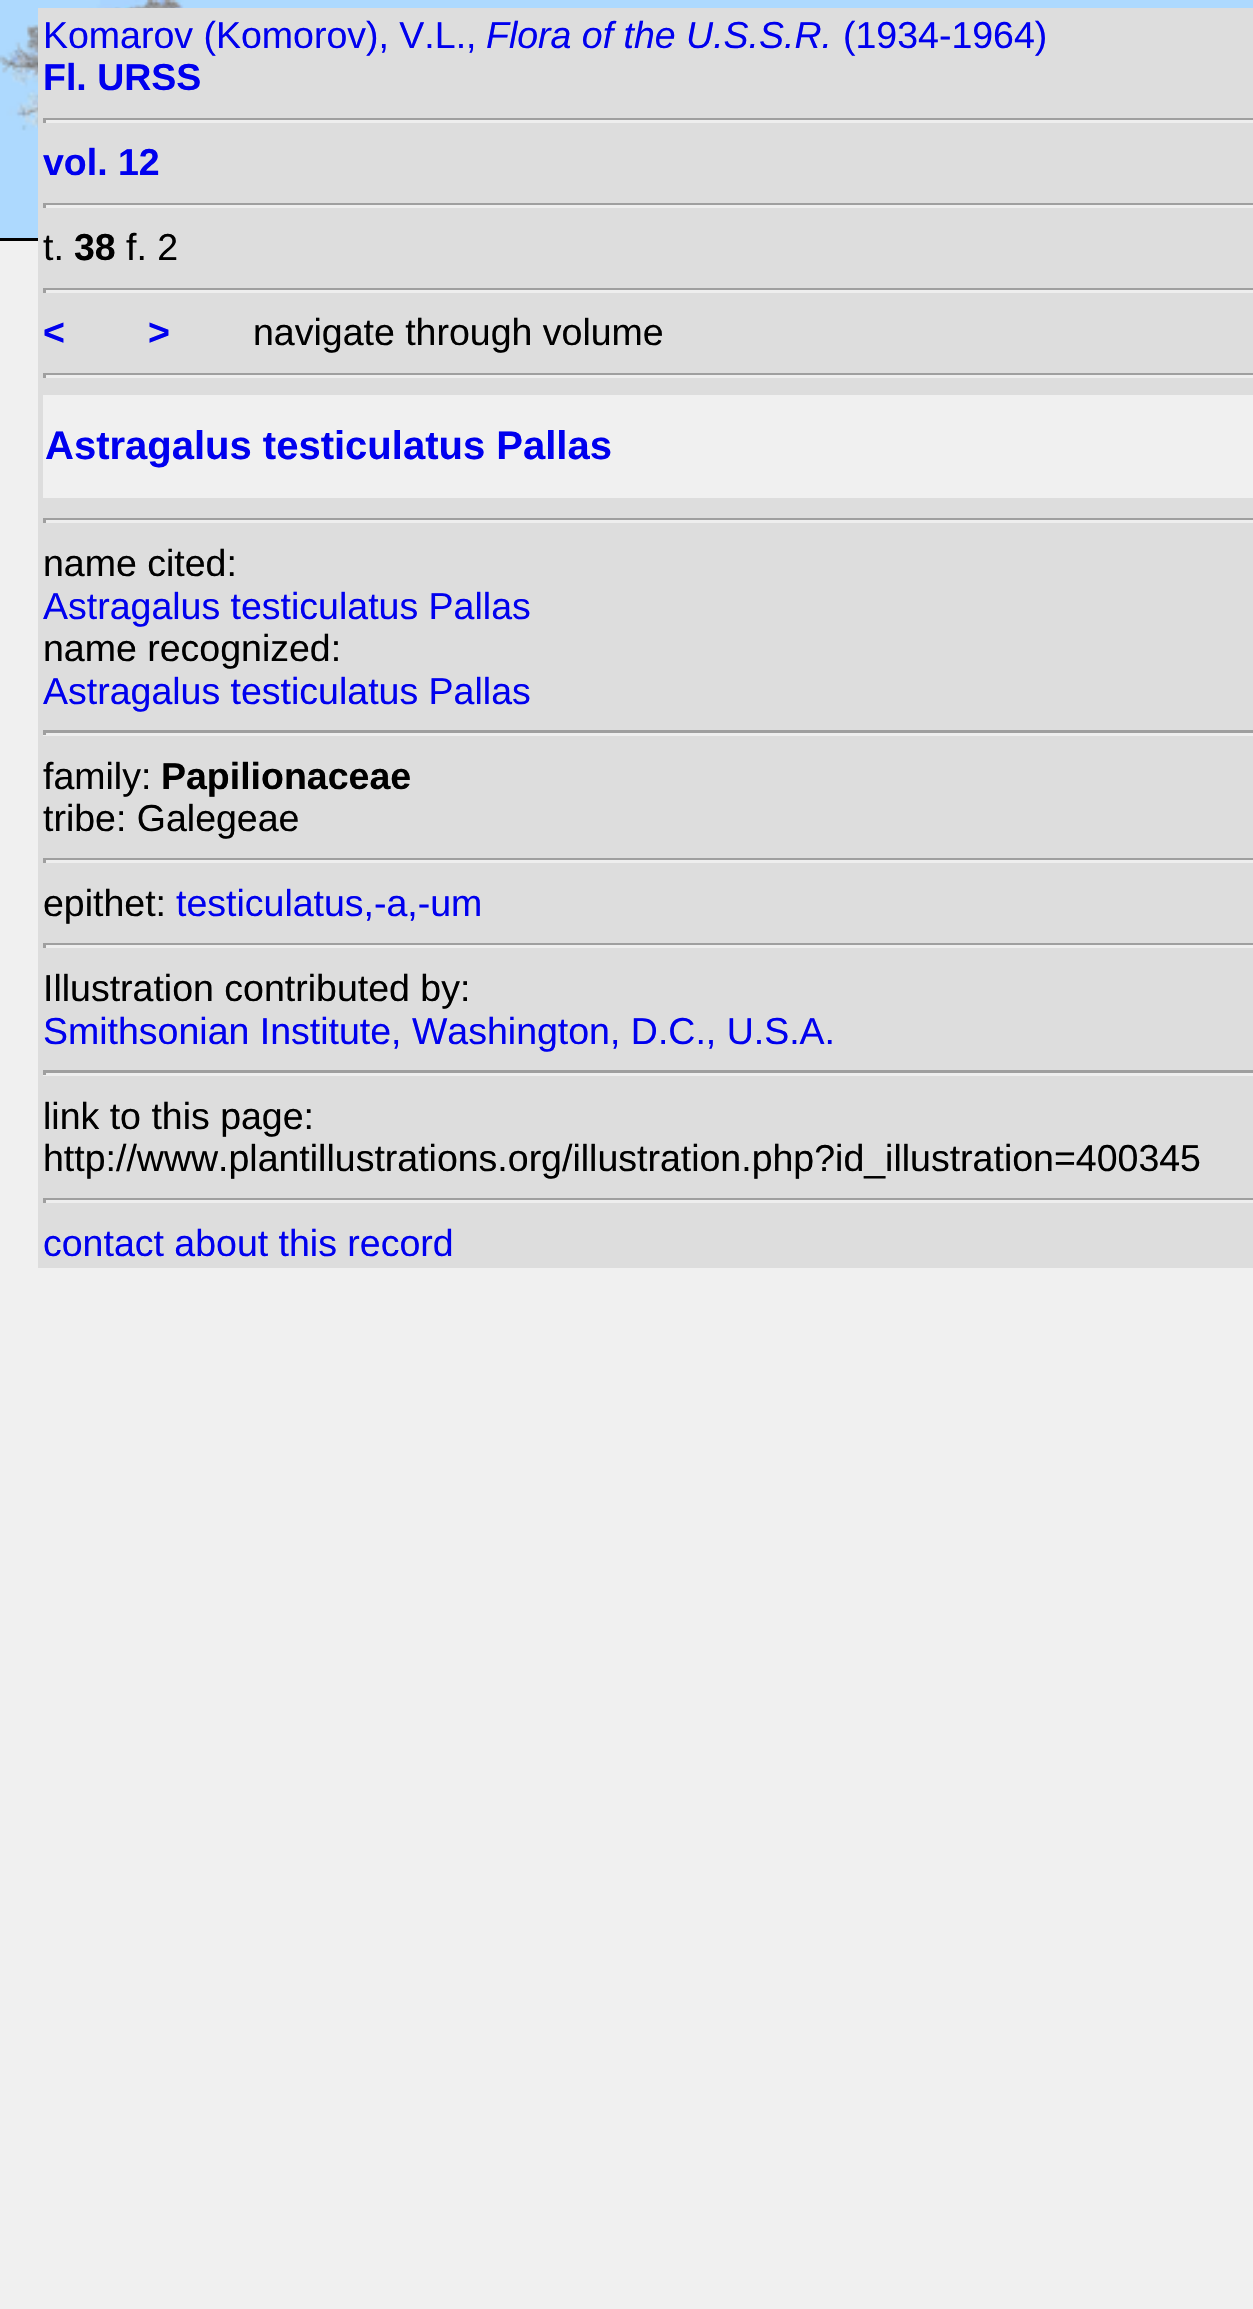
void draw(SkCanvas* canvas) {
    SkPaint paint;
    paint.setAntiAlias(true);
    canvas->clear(0xFFF0F0F0);
    paint.setColor(0xFFADD9FE);
    canvas->drawRect(SkRect::MakeXYWH(0, 0, 1253, 238), paint);
    paint.setColor(0xFF000000);
    canvas->drawRect(SkRect::MakeXYWH(0, 238, 38, 3), paint);
    canvas->drawImageRect(SkImages::DeferredFromEncodedData(SkData::MakeFromFileName("img1.png")), SkRect::MakeXYWH(0, 0, 250, 235), SkSamplingOptions());
    paint.setColor(0xFFDDDDDD);
    canvas->drawRect(SkRect::MakeXYWH(38, 8, 1215, 1260), paint);
    SkFont font1(fontMgr->matchFamilyStyle("Liberation Sans", SkFontStyle::Normal()), 37.5f);
    font1.setSubpixel(true);
    paint.setColor(0xFF0000EE);
    canvas->drawString("Komarov (Komorov), V.L.,", 43, 48, font1, paint);
    SkFont font2(fontMgr->matchFamilyStyle("Liberation Sans", SkFontStyle::Italic()), 37.5f);
    font2.setSubpixel(true);
    canvas->drawString("Flora of the U.S.S.R.", 486, 48, font2, paint);
    canvas->drawString("(1934-1964)", 843, 48, font1, paint);
    SkFont font3(fontMgr->matchFamilyStyle("Liberation Sans", SkFontStyle::Bold()), 37.5f);
    font3.setSubpixel(true);
    canvas->drawString("Fl. URSS", 43, 90, font3, paint);
    paint.setColor(0xFF9F9F9F);
    canvas->drawRect(SkRect::MakeXYWH(43, 118, 1210, 2), paint);
    paint.setColor(0xFFEEEEEE);
    canvas->drawRect(SkRect::MakeXYWH(43, 120, 1210, 3), paint);
    paint.setColor(0xFF9F9F9F);
    canvas->drawRect(SkRect::MakeXYWH(43, 118, 3, 5), paint);
    paint.setColor(0xFF0000EE);
    canvas->drawString("vol. 12", 43, 175, font3, paint);
    paint.setColor(0xFF9F9F9F);
    canvas->drawRect(SkRect::MakeXYWH(43, 203, 1210, 2), paint);
    paint.setColor(0xFFEEEEEE);
    canvas->drawRect(SkRect::MakeXYWH(43, 205, 1210, 3), paint);
    paint.setColor(0xFF9F9F9F);
    canvas->drawRect(SkRect::MakeXYWH(43, 203, 3, 5), paint);
    paint.setColor(0xFF000000);
    canvas->drawString("t.", 43, 260, font1, paint);
    canvas->drawString("38", 74, 260, font3, paint);
    canvas->drawString("f. 2", 126, 260, font1, paint);
    paint.setColor(0xFF9F9F9F);
    canvas->drawRect(SkRect::MakeXYWH(43, 288, 1210, 2), paint);
    paint.setColor(0xFFEEEEEE);
    canvas->drawRect(SkRect::MakeXYWH(43, 290, 1210, 3), paint);
    paint.setColor(0xFF9F9F9F);
    canvas->drawRect(SkRect::MakeXYWH(43, 288, 3, 5), paint);
    paint.setColor(0xFF0000EE);
    canvas->drawString("<", 43, 345, font3, paint);
    canvas->drawString(">", 148, 345, font3, paint);
    paint.setColor(0xFF000000);
    canvas->drawString("navigate through volume", 253, 345, font1, paint);
    paint.setColor(0xFF9F9F9F);
    canvas->drawRect(SkRect::MakeXYWH(43, 373, 1210, 2), paint);
    paint.setColor(0xFFEEEEEE);
    canvas->drawRect(SkRect::MakeXYWH(43, 375, 1210, 3), paint);
    paint.setColor(0xFF9F9F9F);
    canvas->drawRect(SkRect::MakeXYWH(43, 373, 3, 5), paint);
    paint.setColor(0xFFF0F0F0);
    canvas->drawRect(SkRect::MakeXYWH(43, 395, 1210, 103), paint);
    SkFont font4(fontMgr->matchFamilyStyle("Liberation Sans", SkFontStyle::Bold()), 40);
    font4.setSubpixel(true);
    paint.setColor(0xFF0000EE);
    canvas->drawString("Astragalus testiculatus Pallas", 45, 459, font4, paint);
    paint.setColor(0xFF9F9F9F);
    canvas->drawRect(SkRect::MakeXYWH(43, 518, 1210, 2), paint);
    paint.setColor(0xFFEEEEEE);
    canvas->drawRect(SkRect::MakeXYWH(43, 520, 1210, 3), paint);
    paint.setColor(0xFF9F9F9F);
    canvas->drawRect(SkRect::MakeXYWH(43, 518, 3, 5), paint);
    paint.setColor(0xFF000000);
    canvas->drawString("name cited:", 43, 576, font1, paint);
    paint.setColor(0xFF0000EE);
    canvas->drawString("Astragalus testiculatus Pallas", 43, 619, font1, paint);
    paint.setColor(0xFF000000);
    canvas->drawString("name recognized:", 43, 661, font1, paint);
    paint.setColor(0xFF0000EE);
    canvas->drawString("Astragalus testiculatus Pallas", 43, 704, font1, paint);
    paint.setColor(0xFF9F9F9F);
    canvas->drawRect(SkRect::MakeXYWH(43, 730, 1210, 3), paint);
    paint.setColor(0xFFEEEEEE);
    canvas->drawRect(SkRect::MakeXYWH(43, 733, 1210, 3), paint);
    paint.setColor(0xFF9F9F9F);
    canvas->drawRect(SkRect::MakeXYWH(43, 730, 3, 5), paint);
    paint.setColor(0xFF000000);
    canvas->drawString("family:", 43, 789, font1, paint);
    canvas->drawString("Papilionaceae", 161, 789, font3, paint);
    canvas->drawString("tribe: Galegeae", 43, 831, font1, paint);
    paint.setColor(0xFF9F9F9F);
    canvas->drawRect(SkRect::MakeXYWH(43, 858, 1210, 2), paint);
    paint.setColor(0xFFEEEEEE);
    canvas->drawRect(SkRect::MakeXYWH(43, 860, 1210, 3), paint);
    paint.setColor(0xFF9F9F9F);
    canvas->drawRect(SkRect::MakeXYWH(43, 858, 3, 5), paint);
    paint.setColor(0xFF000000);
    canvas->drawString("epithet:", 43, 916, font1, paint);
    paint.setColor(0xFF0000EE);
    canvas->drawString("testiculatus,-a,-um", 176, 916, font1, paint);
    paint.setColor(0xFF9F9F9F);
    canvas->drawRect(SkRect::MakeXYWH(43, 943, 1210, 2), paint);
    paint.setColor(0xFFEEEEEE);
    canvas->drawRect(SkRect::MakeXYWH(43, 945, 1210, 3), paint);
    paint.setColor(0xFF9F9F9F);
    canvas->drawRect(SkRect::MakeXYWH(43, 943, 3, 5), paint);
    paint.setColor(0xFF000000);
    canvas->drawString("Illustration contributed by:", 43, 1001, font1, paint);
    paint.setColor(0xFF0000EE);
    canvas->drawString("Smithsonian Institute, Washington, D.C., U.S.A.", 43, 1044, font1, paint);
    paint.setColor(0xFF9F9F9F);
    canvas->drawRect(SkRect::MakeXYWH(43, 1070, 1210, 3), paint);
    paint.setColor(0xFFEEEEEE);
    canvas->drawRect(SkRect::MakeXYWH(43, 1073, 1210, 3), paint);
    paint.setColor(0xFF9F9F9F);
    canvas->drawRect(SkRect::MakeXYWH(43, 1070, 3, 5), paint);
    paint.setColor(0xFF000000);
    canvas->drawString("link to this page:", 43, 1129, font1, paint);
    canvas->drawString("http://www.plantillustrations.org/illustration.php?id_illustration=400345", 43, 1171, font1, paint);
    paint.setColor(0xFF9F9F9F);
    canvas->drawRect(SkRect::MakeXYWH(43, 1198, 1210, 2), paint);
    paint.setColor(0xFFEEEEEE);
    canvas->drawRect(SkRect::MakeXYWH(43, 1200, 1210, 3), paint);
    paint.setColor(0xFF9F9F9F);
    canvas->drawRect(SkRect::MakeXYWH(43, 1198, 3, 5), paint);
    paint.setColor(0xFF0000EE);
    canvas->drawString("contact about this record", 43, 1256, font1, paint);
}
